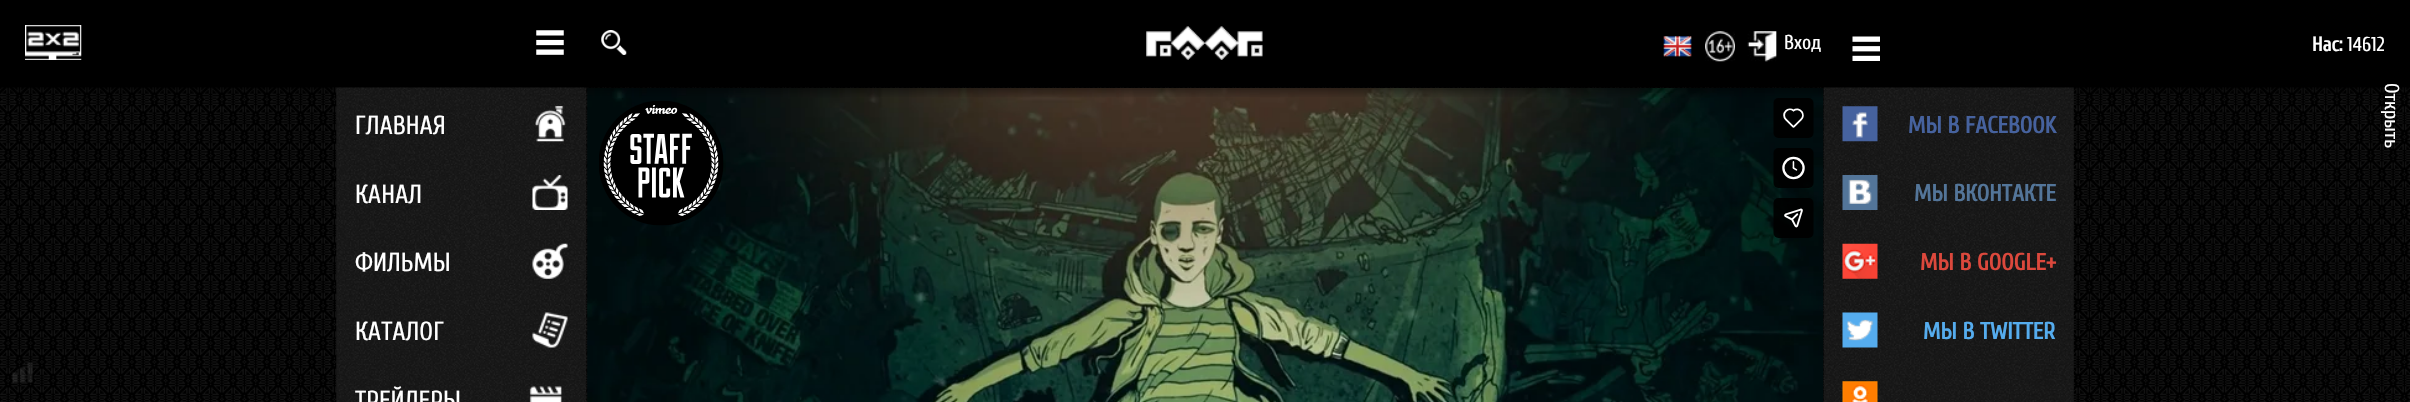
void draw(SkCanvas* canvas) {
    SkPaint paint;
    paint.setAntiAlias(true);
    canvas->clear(0xFF000000);
    canvas->drawImageRect(SkImages::DeferredFromEncodedData(SkData::MakeFromFileName("img1.png")), SkRect::MakeXYWH(25, 25, 57, 35), SkSamplingOptions());
    canvas->drawImageRect(SkImages::DeferredFromEncodedData(SkData::MakeFromFileName("img2.png")), SkRect::MakeXYWH(536, 30, 28, 25), SkSamplingOptions());
    canvas->drawImageRect(SkImages::DeferredFromEncodedData(SkData::MakeFromFileName("img3.png")), SkRect::MakeXYWH(601, 30, 26, 25), SkSamplingOptions());
    canvas->drawImageRect(SkImages::DeferredFromEncodedData(SkData::MakeFromFileName("img4.png")), SkRect::MakeXYWH(1146, 26, 117, 34), SkSamplingOptions());
    canvas->drawImageRect(SkImages::DeferredFromEncodedData(SkData::MakeFromFileName("img5.png")), SkRect::MakeXYWH(1663, 36, 29, 21), SkSamplingOptions());
    canvas->drawImageRect(SkImages::DeferredFromEncodedData(SkData::MakeFromFileName("img6.png")), SkRect::MakeXYWH(1705, 31, 30, 31), SkSamplingOptions());
    canvas->drawImageRect(SkImages::DeferredFromEncodedData(SkData::MakeFromFileName("img7.png")), SkRect::MakeXYWH(1747, 31, 30, 31), SkSamplingOptions());
    SkFont font1(fontMgr->matchFamilyStyle("Cuprum", SkFontStyle::Normal()), 20);
    font1.setSubpixel(true);
    paint.setColor(0xFFFFFFFF);
    canvas->drawString("Вход", 1784, 49, font1, paint);
    canvas->drawImageRect(SkImages::DeferredFromEncodedData(SkData::MakeFromFileName("img8.png")), SkRect::MakeXYWH(1852, 36, 28, 25), SkSamplingOptions());
    SkFont font2(fontMgr->matchFamilyStyle("Cuprum", SkFontStyle::Bold()), 20);
    font2.setSubpixel(true);
    canvas->drawString("Нас:", 2312, 51, font2, paint);
    canvas->drawString("14612", 2347, 51, font1, paint);
    canvas->drawImageRect(SkImages::DeferredFromEncodedData(SkData::MakeFromFileName("img10.png")), SkRect::MakeXYWH(0, 87, 2410, 315), SkSamplingOptions());
    canvas->drawImageRect(SkImages::DeferredFromEncodedData(SkData::MakeFromFileName("img11.png")), SkRect::MakeXYWH(587, 88, 1237, 314), SkSamplingOptions());
    canvas->drawImageRect(SkImages::DeferredFromEncodedData(SkData::MakeFromFileName("img9.png")), SkRect::MakeXYWH(0, 88, 2410, 9), SkSamplingOptions());
    canvas->save();
    canvas->rotate(90, 2385, 83);
    canvas->drawString("Открыть", 2385, 83, font1, paint);
    canvas->restore();
    canvas->drawImageRect(SkImages::DeferredFromEncodedData(SkData::MakeFromFileName("img12.png")), SkRect::MakeXYWH(12, 362, 21, 21), SkSamplingOptions());
    canvas->drawImageRect(SkImages::DeferredFromEncodedData(SkData::MakeFromFileName("img13.png")), SkRect::MakeXYWH(336, 87, 251, 315), SkSamplingOptions());
    SkFont font3(fontMgr->matchFamilyStyle("Cuprum", SkFontStyle::Normal()), 26);
    font3.setSubpixel(true);
    canvas->drawString("ГЛАВНАЯ", 355, 134, font3, paint);
    canvas->drawImageRect(SkImages::DeferredFromEncodedData(SkData::MakeFromFileName("img14.png")), SkRect::MakeXYWH(535, 106, 31, 36), SkSamplingOptions());
    canvas->drawString("КАНАЛ", 355, 203, font3, paint);
    canvas->drawImageRect(SkImages::DeferredFromEncodedData(SkData::MakeFromFileName("img15.png")), SkRect::MakeXYWH(532, 175, 36, 35), SkSamplingOptions());
    canvas->drawString("ФИЛЬМЫ", 355, 271, font3, paint);
    canvas->drawImageRect(SkImages::DeferredFromEncodedData(SkData::MakeFromFileName("img16.png")), SkRect::MakeXYWH(532, 243, 36, 36), SkSamplingOptions());
    canvas->drawString("КАТАЛОГ", 355, 340, font3, paint);
    canvas->drawImageRect(SkImages::DeferredFromEncodedData(SkData::MakeFromFileName("img17.png")), SkRect::MakeXYWH(532, 312, 36, 36), SkSamplingOptions());
    canvas->drawString("ТРЕЙЛЕРЫ", 355, 409, font3, paint);
    canvas->drawImageRect(SkImages::DeferredFromEncodedData(SkData::MakeFromFileName("img18.png")), SkRect::MakeXYWH(529, 386, 33, 16), SkSamplingOptions());
    canvas->drawImageRect(SkImages::DeferredFromEncodedData(SkData::MakeFromFileName("img19.png")), SkRect::MakeXYWH(1823, 87, 251, 315), SkSamplingOptions());
    canvas->drawImageRect(SkImages::DeferredFromEncodedData(SkData::MakeFromFileName("img20.png")), SkRect::MakeXYWH(1842, 106, 36, 36), SkSamplingOptions());
    SkFont font4(fontMgr->matchFamilyStyle("Cuprum", SkFontStyle::Bold()), 23.5f);
    font4.setSubpixel(true);
    paint.setColor(0xFF46629E);
    canvas->drawString("МЫ В FACEBOOK", 1908, 133, font4, paint);
    canvas->drawImageRect(SkImages::DeferredFromEncodedData(SkData::MakeFromFileName("img21.png")), SkRect::MakeXYWH(1842, 175, 36, 35), SkSamplingOptions());
    paint.setColor(0xFF537599);
    canvas->drawString("МЫ ВКОНТАКТЕ", 1914, 201, font4, paint);
    canvas->drawImageRect(SkImages::DeferredFromEncodedData(SkData::MakeFromFileName("img22.png")), SkRect::MakeXYWH(1842, 243, 36, 36), SkSamplingOptions());
    paint.setColor(0xFFDC483C);
    canvas->drawString("МЫ В GOOGLE+", 1920, 270, font4, paint);
    canvas->drawImageRect(SkImages::DeferredFromEncodedData(SkData::MakeFromFileName("img23.png")), SkRect::MakeXYWH(1842, 312, 36, 36), SkSamplingOptions());
    paint.setColor(0xFF55ACEE);
    canvas->drawString("МЫ В TWITTER", 1923, 339, font4, paint);
    canvas->drawImageRect(SkImages::DeferredFromEncodedData(SkData::MakeFromFileName("img24.png")), SkRect::MakeXYWH(1842, 381, 36, 21), SkSamplingOptions());
}
